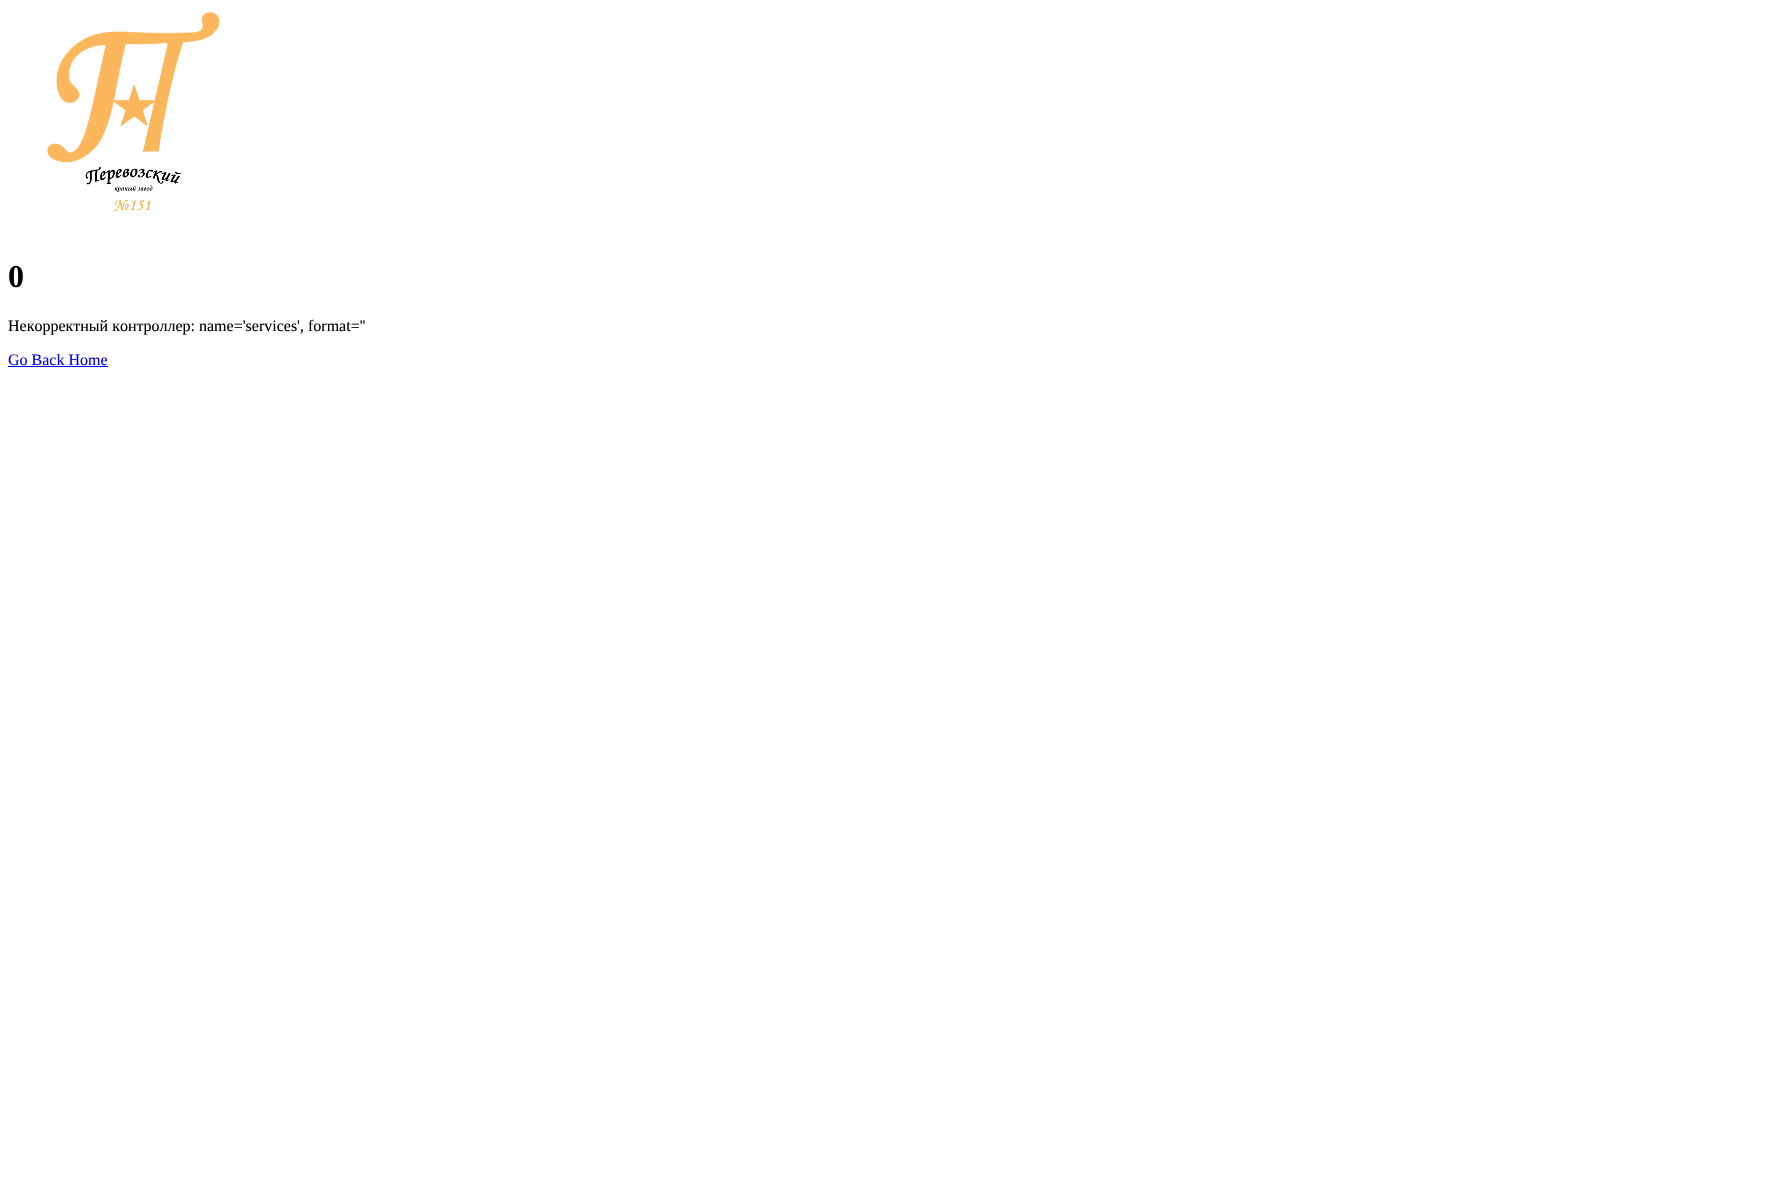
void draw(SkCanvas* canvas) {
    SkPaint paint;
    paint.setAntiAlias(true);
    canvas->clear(0xFFFFFFFF);
    canvas->drawImageRect(SkImages::DeferredFromEncodedData(SkData::MakeFromFileName("img1.png")), SkRect::MakeXYWH(47, 12, 173, 199), SkSamplingOptions());
    SkFont font1(fontMgr->matchFamilyStyle("Liberation Serif", SkFontStyle::Bold()), 32);
    font1.setSubpixel(true);
    paint.setColor(0xFF000000);
    canvas->drawString("0", 8, 287, font1, paint);
    SkFont font2(fontMgr->matchFamilyStyle("Liberation Serif", SkFontStyle::Normal()), 16);
    font2.setSubpixel(true);
    canvas->drawString("Некорректный контроллер: name='services', format=''", 8, 331, font2, paint);
    paint.setColor(0xFF0000EE);
    canvas->drawString("Go Back Home", 8, 365, font2, paint);
    canvas->drawRect(SkRect::MakeXYWH(8, 366, 100, 1), paint);
}
